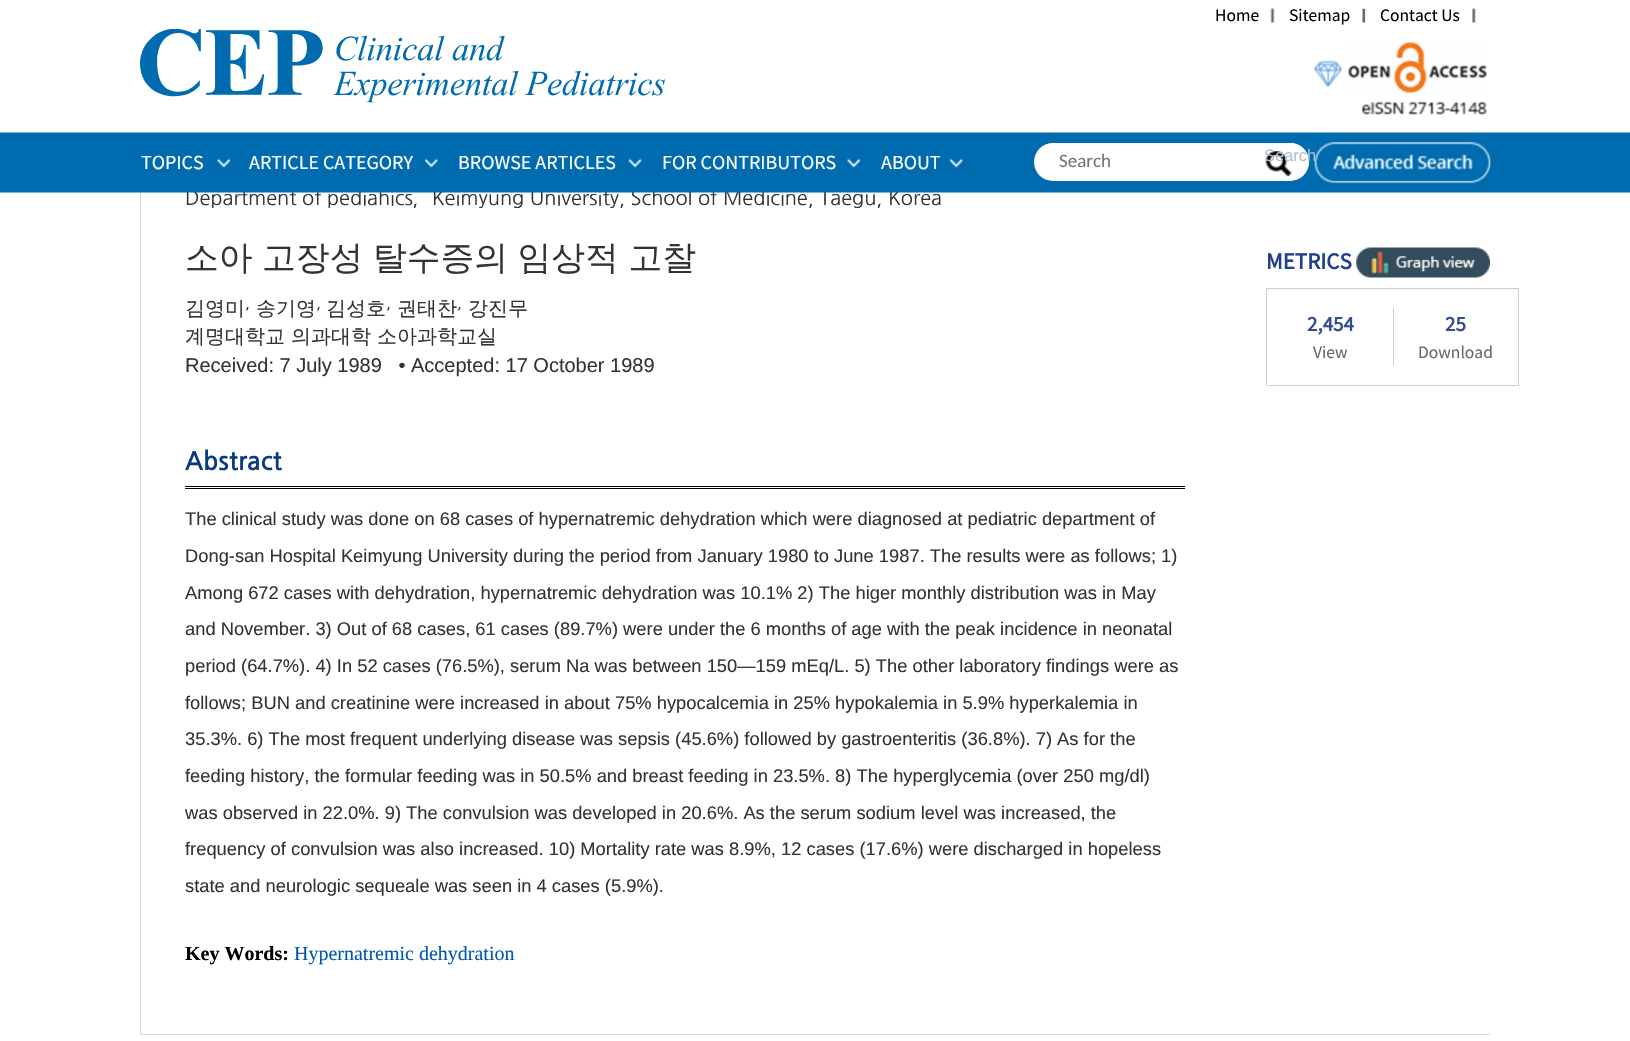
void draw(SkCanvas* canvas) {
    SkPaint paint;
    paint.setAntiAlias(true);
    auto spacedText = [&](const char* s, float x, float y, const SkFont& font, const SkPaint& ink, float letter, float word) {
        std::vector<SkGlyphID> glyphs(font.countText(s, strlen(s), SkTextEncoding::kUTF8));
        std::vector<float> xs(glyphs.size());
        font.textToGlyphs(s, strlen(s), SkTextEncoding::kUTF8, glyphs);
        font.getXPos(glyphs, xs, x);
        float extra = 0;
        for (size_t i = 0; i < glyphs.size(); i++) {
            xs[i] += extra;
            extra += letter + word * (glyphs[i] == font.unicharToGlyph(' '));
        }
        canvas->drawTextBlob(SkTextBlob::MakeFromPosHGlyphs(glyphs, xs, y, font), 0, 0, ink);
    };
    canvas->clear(0xFFFFFFFF);
    paint.setColor(0xFFCCDDDD);
    canvas->drawRect(SkRect::MakeXYWH(140, 192, 1, 842), paint);
    SkFont font1(fontMgr->matchFamilyStyle("NanumGothic", SkFontStyle::Normal()), 20);
    font1.setSubpixel(true);
    paint.setColor(0xFF333333);
    canvas->drawString("Department of pediahics，Keimyung University, School of Medicine, Taegu, Korea", 185, 205, font1, paint);
    canvas->drawImageRect(SkImages::DeferredFromEncodedData(SkData::MakeFromFileName("img1.png")), SkRect::MakeXYWH(0, 0, 1630, 193), SkSamplingOptions());
    SkFont font2(fontMgr->matchFamilyStyle("Source Sans Pro", SkFontStyle::Normal()), 17.5f);
    font2.setSubpixel(true);
    paint.setColor(0xFF000000);
    canvas->drawString("Home", 1215, 21, font2, paint);
    canvas->drawImageRect(SkImages::DeferredFromEncodedData(SkData::MakeFromFileName("img2.png")), SkRect::MakeXYWH(1270, 8, 5, 15), SkSamplingOptions());
    canvas->drawString("Sitemap", 1289, 21, font2, paint);
    canvas->drawImageRect(SkImages::DeferredFromEncodedData(SkData::MakeFromFileName("img3.png")), SkRect::MakeXYWH(1362, 8, 4, 15), SkSamplingOptions());
    canvas->drawString("Contact Us", 1380, 21, font2, paint);
    canvas->drawImageRect(SkImages::DeferredFromEncodedData(SkData::MakeFromFileName("img4.png")), SkRect::MakeXYWH(1472, 8, 4, 15), SkSamplingOptions());
    canvas->drawImageRect(SkImages::DeferredFromEncodedData(SkData::MakeFromFileName("img5.png")), SkRect::MakeXYWH(140, 29, 525, 74), SkSamplingOptions());
    canvas->drawImageRect(SkImages::DeferredFromEncodedData(SkData::MakeFromFileName("img6.png")), SkRect::MakeXYWH(1313, 41, 174, 74), SkSamplingOptions());
    canvas->drawImageRect(SkImages::DeferredFromEncodedData(SkData::MakeFromFileName("img7.png")), SkRect::MakeXYWH(217, 158, 13, 10), SkSamplingOptions());
    SkFont font3(fontMgr->matchFamilyStyle("Source Sans Pro", SkFontStyle::Normal()), 20);
    font3.setSubpixel(true);
    paint.setColor(0xFFFFFFFF);
    canvas->drawString("TOPICS", 141, 169, font3, paint);
    canvas->drawImageRect(SkImages::DeferredFromEncodedData(SkData::MakeFromFileName("img8.png")), SkRect::MakeXYWH(425, 158, 13, 10), SkSamplingOptions());
    canvas->drawString("ARTICLE CATEGORY", 249, 169, font3, paint);
    canvas->drawImageRect(SkImages::DeferredFromEncodedData(SkData::MakeFromFileName("img9.png")), SkRect::MakeXYWH(628, 158, 14, 10), SkSamplingOptions());
    canvas->drawString("BROWSE ARTICLES", 458, 169, font3, paint);
    canvas->drawImageRect(SkImages::DeferredFromEncodedData(SkData::MakeFromFileName("img10.png")), SkRect::MakeXYWH(847, 158, 13, 10), SkSamplingOptions());
    canvas->drawString("FOR CONTRIBUTORS", 662, 169, font3, paint);
    canvas->drawImageRect(SkImages::DeferredFromEncodedData(SkData::MakeFromFileName("img8.png")), SkRect::MakeXYWH(950, 158, 13, 10), SkSamplingOptions());
    canvas->drawString("ABOUT", 881, 169, font3, paint);
    canvas->drawRoundRect(SkRect::MakeXYWH(1034, 143, 275, 38), 19, 19, paint);
    canvas->drawRoundRect(SkRect::MakeXYWH(1046, 143, 263, 37), 18.5f, 18.5f, paint);
    SkFont font4(fontMgr->matchFamilyStyle("Carlito", SkFontStyle::Normal()), 19);
    font4.setSubpixel(true);
    paint.setColor(0xFF757575);
    canvas->drawString("Search", 1059, 167, font4, paint);
    canvas->drawImageRect(SkImages::DeferredFromEncodedData(SkData::MakeFromFileName("img11.png")), SkRect::MakeXYWH(1265, 151, 27, 26), SkSamplingOptions());
    canvas->drawImageRect(SkImages::DeferredFromEncodedData(SkData::MakeFromFileName("img12.png")), SkRect::MakeXYWH(1314, 142, 177, 42), SkSamplingOptions());
    SkFont font5(fontMgr->matchFamilyStyle("Liberation Sans", SkFontStyle::Normal()), 16.5f);
    font5.setSubpixel(true);
    paint.setColor(0xFFB1BFC9);
    canvas->drawString("Search", 1264, 161, font5, paint);
    paint.setColor(0xFFD8D8D8);
    canvas->drawRect(SkRect::MakeXYWH(140, 1034, 1350, 1), paint);
    SkFont font6(fontMgr->matchFamilyStyle("WenQuanYi Zen Hei", SkFontStyle(500, SkFontStyle::kNormal_Width, SkFontStyle::kUpright_Slant)), 33.75f);
    font6.setSubpixel(true);
    paint.setColor(0xFF333333);
    spacedText("소아 고장성 탈수증의 임상적 고찰", 185, 269, font6, paint, 0, -0.5f);
    SkFont font7(fontMgr->matchFamilyStyle("WenQuanYi Zen Hei", SkFontStyle(500, SkFontStyle::kNormal_Width, SkFontStyle::kUpright_Slant)), 20);
    font7.setSubpixel(true);
    canvas->drawString("김영미", 185, 315, font7, paint);
    SkFont font8(fontMgr->matchFamilyStyle("NanumGothic", SkFontStyle::Normal()), 16.5f);
    font8.setSubpixel(true);
    canvas->drawString(",", 245, 308, font8, paint);
    canvas->drawString("송기영", 256, 315, font7, paint);
    canvas->drawString(",", 316, 308, font8, paint);
    canvas->drawString("김성호", 326, 315, font7, paint);
    canvas->drawString(",", 386, 308, font8, paint);
    canvas->drawString("권태찬", 397, 315, font7, paint);
    canvas->drawString(",", 457, 308, font8, paint);
    canvas->drawString("강진무", 468, 315, font7, paint);
    canvas->drawString("계명대학교 의과대학 소아과학교실", 185, 343, font7, paint);
    SkFont font9(fontMgr->matchFamilyStyle("Liberation Sans", SkFontStyle::Normal()), 20);
    font9.setSubpixel(true);
    canvas->drawString("Received: 7 July 1989   • Accepted: 17 October 1989", 185, 372, font9, paint);
    paint.setColor(0xFF000000);
    canvas->drawRect(SkRect::MakeXYWH(185, 486, 1000, 1), paint);
    SkFont font10(fontMgr->matchFamilyStyle("NanumGothic", SkFontStyle::Bold()), 25);
    font10.setSubpixel(true);
    paint.setColor(0xFF083B80);
    canvas->drawString("Abstract", 185, 470, font10, paint);
    paint.setColor(0xFF000000);
    canvas->drawRect(SkRect::MakeXYWH(185, 488, 1000, 1), paint);
    SkFont font11(fontMgr->matchFamilyStyle("Liberation Sans", SkFontStyle::Normal()), 18.33f);
    font11.setSubpixel(true);
    paint.setColor(0xFF333333);
    canvas->drawString("The clinical study was done on 68 cases of hypernatremic dehydration which were diagnosed at pediatric department of", 185, 525, font11, paint);
    canvas->drawString("Dong-san Hospital Keimyung University during the period from January 1980 to June 1987. The results were as follows; 1)", 185, 562, font11, paint);
    canvas->drawString("Among 672 cases with dehydration, hypernatremic dehydration was 10.1% 2) The higer monthly distribution was in May", 185, 599, font11, paint);
    canvas->drawString("and November. 3) Out of 68 cases, 61 cases (89.7%) were under the 6 months of age with the peak incidence in neonatal", 185, 635, font11, paint);
    canvas->drawString("period (64.7%). 4) In 52 cases (76.5%), serum Na was between 150—159 mEq/L. 5) The other laboratory findings were as", 185, 672, font11, paint);
    canvas->drawString("follows; BUN and creatinine were increased in about 75% hypocalcemia in 25% hypokalemia in 5.9% hyperkalemia in", 185, 709, font11, paint);
    canvas->drawString("35.3%. 6) The most frequent underlying disease was sepsis (45.6%) followed by gastroenteritis (36.8%). 7) As for the", 185, 745, font11, paint);
    canvas->drawString("feeding history, the formular feeding was in 50.5% and breast feeding in 23.5%. 8) The hyperglycemia (over 250 mg/dl)", 185, 782, font11, paint);
    canvas->drawString("was observed in 22.0%. 9) The convulsion was developed in 20.6%. As the serum sodium level was increased, the", 185, 819, font11, paint);
    canvas->drawString("frequency of convulsion was also increased. 10) Mortality rate was 8.9%, 12 cases (17.6%) were discharged in hopeless", 185, 855, font11, paint);
    canvas->drawString("state and neurologic sequeale was seen in 4 cases (5.9%).", 185, 892, font11, paint);
    SkFont font12(fontMgr->matchFamilyStyle("Liberation Serif", SkFontStyle::Bold()), 20);
    font12.setSubpixel(true);
    paint.setColor(0xFF000000);
    canvas->drawString("Key Words:", 185, 960, font12, paint);
    SkFont font13(fontMgr->matchFamilyStyle("Liberation Serif", SkFontStyle::Normal()), 20);
    font13.setSubpixel(true);
    paint.setColor(0xFF0056AF);
    canvas->drawString("Hypernatremic dehydration", 294, 960, font13, paint);
    SkFont font14(fontMgr->matchFamilyStyle("Source Sans Pro", SkFontStyle::Bold()), 23);
    font14.setSubpixel(true);
    paint.setColor(0xFF253F8E);
    canvas->drawString("METRICS", 1266, 269, font14, paint);
    canvas->drawImageRect(SkImages::DeferredFromEncodedData(SkData::MakeFromFileName("img13.png")), SkRect::MakeXYWH(1356, 247, 134, 31), SkSamplingOptions());
    paint.setColor(0xFFCECECE);
    canvas->drawRect(SkRect::MakeXYWH(1266, 288, 253, 1), paint);
    canvas->drawRect(SkRect::MakeXYWH(1518, 288, 1, 98), paint);
    canvas->drawRect(SkRect::MakeXYWH(1266, 288, 1, 98), paint);
    canvas->drawRect(SkRect::MakeXYWH(1268, 385, 250, 1), paint);
    SkFont font15(fontMgr->matchFamilyStyle("Source Sans Pro", SkFontStyle::Bold()), 21);
    font15.setSubpixel(true);
    paint.setColor(0xFF324C96);
    canvas->drawString("2,454", 1307, 331, font15, paint);
    paint.setColor(0xFF666769);
    canvas->drawString("View", 1313, 358, font2, paint);
    paint.setColor(0xFFCECECE);
    canvas->drawRect(SkRect::MakeXYWH(1393, 308, 1, 58), paint);
    paint.setColor(0xFF324C96);
    canvas->drawString("25", 1445, 331, font15, paint);
    paint.setColor(0xFF666769);
    canvas->drawString("Download", 1418, 358, font2, paint);
}
